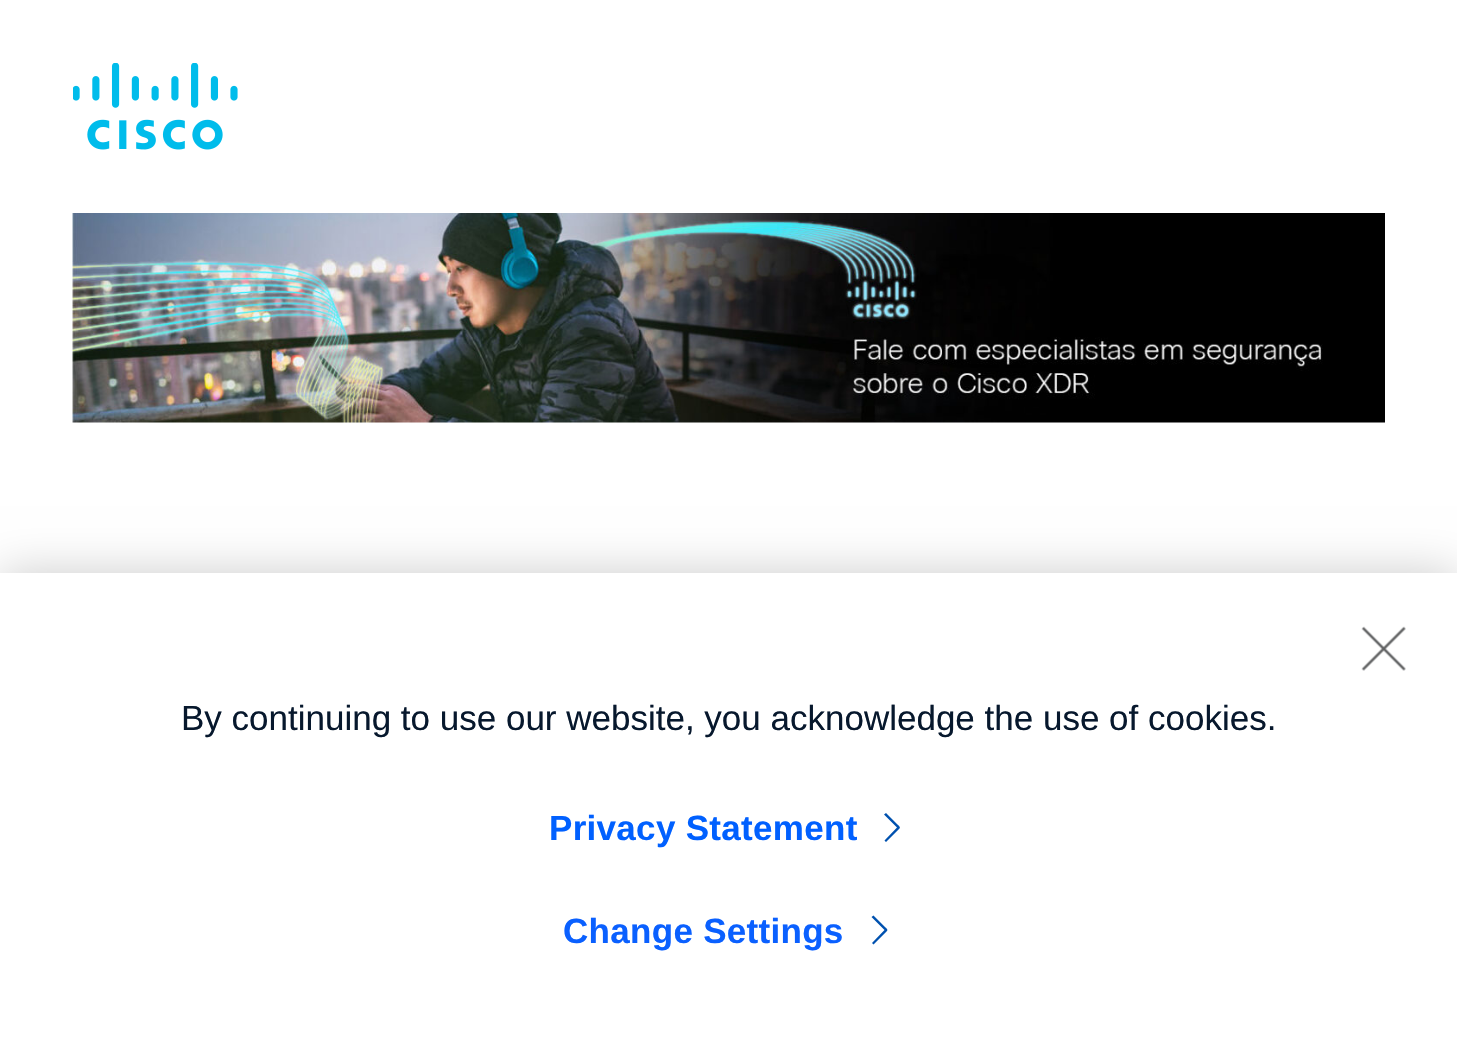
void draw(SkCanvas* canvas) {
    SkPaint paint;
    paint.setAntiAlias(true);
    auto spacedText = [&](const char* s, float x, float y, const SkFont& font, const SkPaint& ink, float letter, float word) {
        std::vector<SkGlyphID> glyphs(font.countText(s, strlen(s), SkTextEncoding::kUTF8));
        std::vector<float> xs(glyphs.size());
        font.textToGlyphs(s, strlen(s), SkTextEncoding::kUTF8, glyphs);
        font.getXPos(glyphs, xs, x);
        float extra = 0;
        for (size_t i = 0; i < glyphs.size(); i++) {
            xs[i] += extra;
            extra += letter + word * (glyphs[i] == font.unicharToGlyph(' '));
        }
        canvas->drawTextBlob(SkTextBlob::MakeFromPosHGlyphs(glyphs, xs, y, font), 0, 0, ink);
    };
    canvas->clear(0xFFFFFFFF);
    canvas->drawImageRect(SkImages::DeferredFromEncodedData(SkData::MakeFromFileName("img1.png")), SkRect::MakeXYWH(73, 63, 165, 87), SkSamplingOptions());
    canvas->drawImageRect(SkImages::DeferredFromEncodedData(SkData::MakeFromFileName("img2.png")), SkRect::MakeXYWH(72, 213, 1313, 210), SkSamplingOptions());
    paint.setColor(0x33000000);
    paint.setMaskFilter(SkMaskFilter::MakeBlur(kNormal_SkBlurStyle, 22.5f));
    canvas->drawRect(SkRect::MakeXYWH(0, 573, 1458, 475), paint);
    paint.setMaskFilter(nullptr);
    paint.setColor(0xFFFFFFFF);
    canvas->drawRect(SkRect::MakeXYWH(0, 573, 1457, 474), paint);
    canvas->drawImageRect(SkImages::DeferredFromEncodedData(SkData::MakeFromFileName("img3.png")), SkRect::MakeXYWH(1361, 626, 45, 45), SkSamplingOptions());
    SkFont font1(fontMgr->matchFamilyStyle("Liberation Sans", SkFontStyle::Normal()), 35);
    font1.setSubpixel(true);
    paint.setColor(0xFF07182D);
    canvas->drawString("By continuing to use our website, you acknowledge the use of cookies.", 181, 730, font1, paint);
    SkFont font2(fontMgr->matchFamilyStyle("Liberation Sans", SkFontStyle::Bold()), 35);
    font2.setSubpixel(true);
    paint.setColor(0xFF0060FF);
    spacedText("Privacy Statement", 549, 840, font2, paint, 0.3f, 0);
    paint.setColor(0xFF0051AF);
    canvas->drawPath(SkPathBuilder().moveTo(886, 842).lineTo(884.5f, 840.5f).lineTo(897, 827.5f).lineTo(884, 814.5f).lineTo(886, 813).lineTo(897.5f, 824.5f).cubicTo(898, 825, 901, 827, 899.5f, 828.5f).close().detach(), paint);
    paint.setColor(0xFF0A60FF);
    spacedText("Change Settings", 563, 943, font2, paint, 0.3f, 0);
    paint.setColor(0xFF0051AF);
    canvas->drawPath(SkPathBuilder().moveTo(873.5f, 944.5f).lineTo(872, 943).lineTo(884.5f, 930).lineTo(871.5f, 917).lineTo(873.5f, 915.5f).lineTo(885, 927).cubicTo(885.5f, 927.5f, 888.5f, 929.5f, 887, 931).close().detach(), paint);
}
